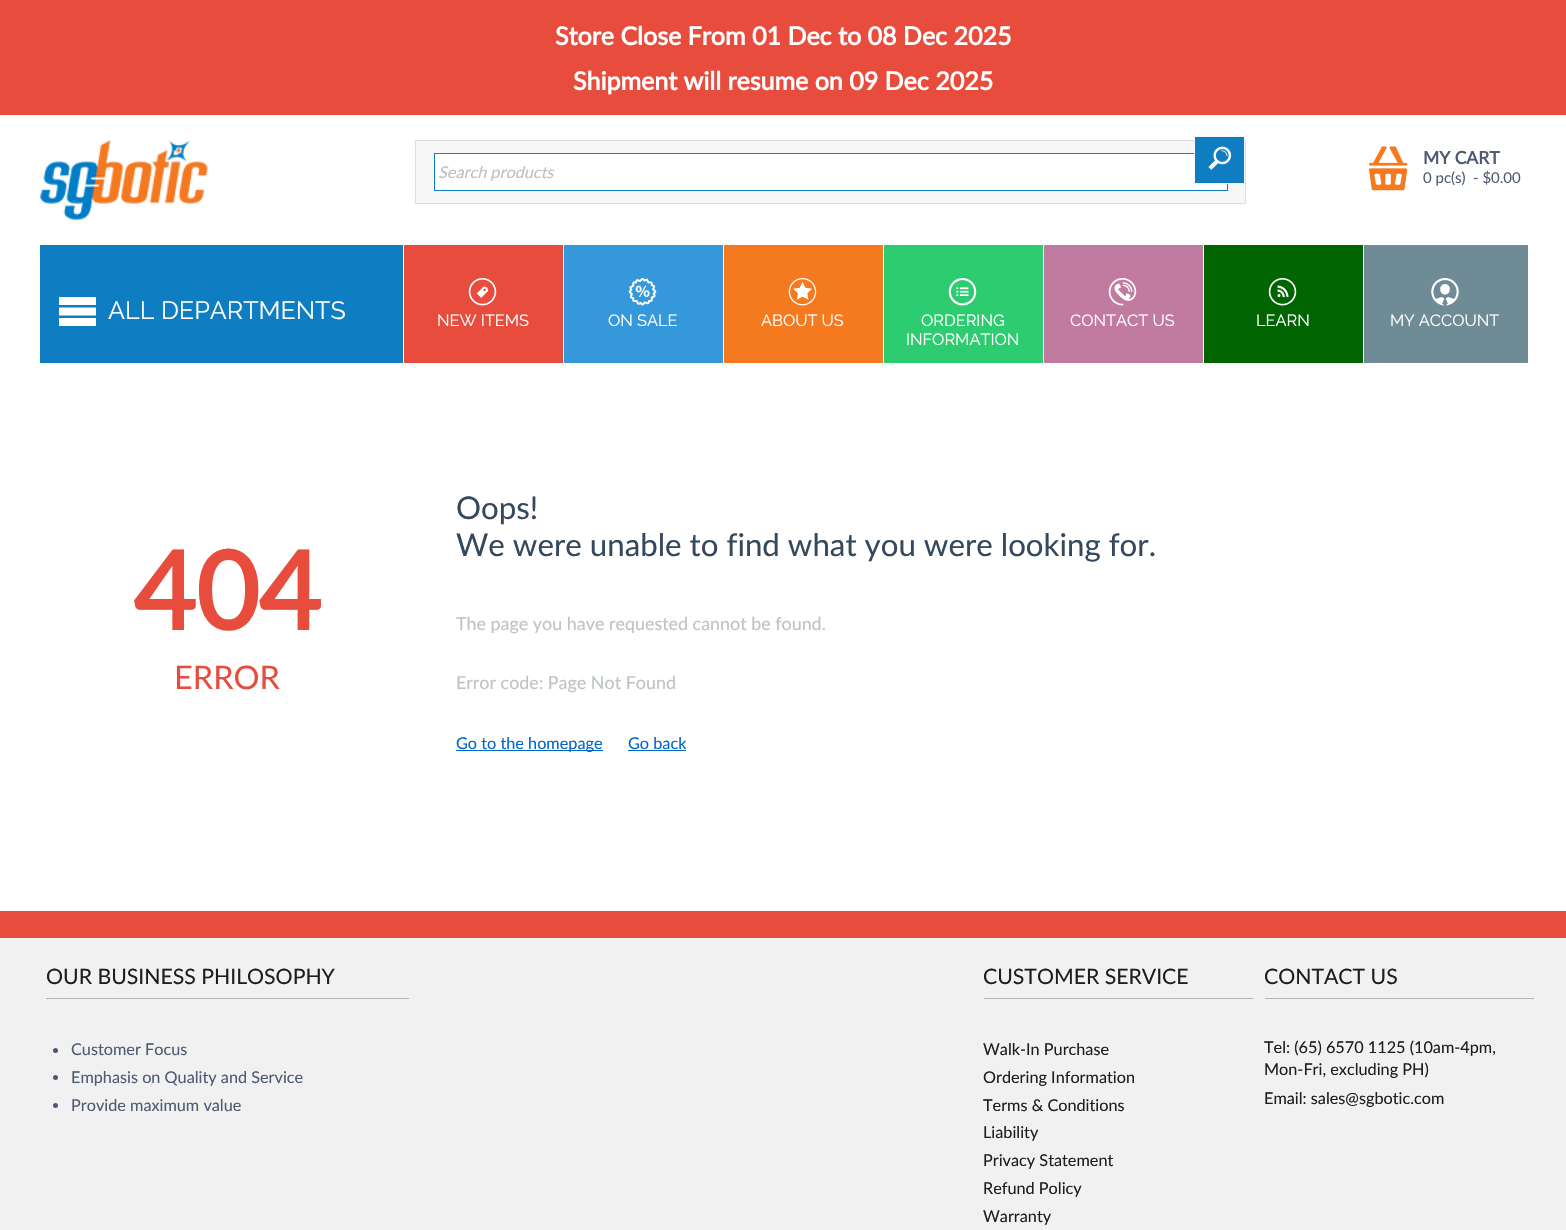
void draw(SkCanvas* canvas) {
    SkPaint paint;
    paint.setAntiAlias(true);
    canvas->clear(0xFFFFFFFF);
    paint.setColor(0xFFE84C3D);
    canvas->drawRect(SkRect::MakeXYWH(0, 0, 1566, 115), paint);
    SkFont font1(fontMgr->matchFamilyStyle("Lato", SkFontStyle::Bold()), 25);
    font1.setSubpixel(true);
    paint.setColor(0xFFFFFFFF);
    canvas->drawString("Store Close From 01 Dec to 08 Dec 2025", 555, 45, font1, paint);
    canvas->drawString("Shipment will resume on 09 Dec 2025", 573, 90, font1, paint);
    canvas->drawImageRect(SkImages::DeferredFromEncodedData(SkData::MakeFromFileName("img1.png")), SkRect::MakeXYWH(40, 140, 168, 80), SkSamplingOptions());
    paint.setColor(0xFFF7F7F7);
    canvas->drawRect(SkRect::MakeXYWH(415.5f, 140.5f, 830, 63), paint);
    paint.setStyle(SkPaint::kStroke_Style);
    paint.setStrokeWidth(1);
    paint.setColor(0xFFDEDEDE);
    canvas->drawRect(SkRect::MakeXYWH(415.5f, 140.5f, 830, 63), paint);
    paint.setStyle(SkPaint::kFill_Style);
    paint.setColor(0xFFFFFFFF);
    canvas->drawRect(SkRect::MakeXYWH(434.5f, 153.5f, 793, 37), paint);
    paint.setStyle(SkPaint::kStroke_Style);
    paint.setColor(0xFF0E7DC2);
    canvas->drawRect(SkRect::MakeXYWH(434.5f, 153.5f, 793, 37), paint);
    SkFont font2(fontMgr->matchFamilyStyle("Lato", SkFontStyle::Italic()), 16.25f);
    font2.setSubpixel(true);
    paint.setStyle(SkPaint::kFill_Style);
    paint.setColor(0xFFC0C0C0);
    canvas->drawString("Search products", 438, 178, font2, paint);
    paint.setColor(0xFF0E7DC2);
    canvas->drawRect(SkRect::MakeXYWH(1194.5f, 136.5f, 50, 47), paint);
    paint.setStyle(SkPaint::kStroke_Style);
    paint.setColor(0xFFF7F7F7);
    canvas->drawRect(SkRect::MakeXYWH(1194.5f, 136.5f, 50, 47), paint);
    canvas->drawImageRect(SkImages::DeferredFromEncodedData(SkData::MakeFromFileName("img2.png")), SkRect::MakeXYWH(1208, 146, 24, 24), SkSamplingOptions());
    canvas->drawImageRect(SkImages::DeferredFromEncodedData(SkData::MakeFromFileName("img3.png")), SkRect::MakeXYWH(1369, 146, 39, 45), SkSamplingOptions());
    SkFont font3(fontMgr->matchFamilyStyle("Lato", SkFontStyle::Bold()), 17.5f);
    font3.setSubpixel(true);
    paint.setStyle(SkPaint::kFill_Style);
    paint.setColor(0xFF4F5972);
    canvas->drawString("MY CART", 1423, 164, font3, paint);
    SkFont font4(fontMgr->matchFamilyStyle("Lato", SkFontStyle::Normal()), 15);
    font4.setSubpixel(true);
    canvas->drawString("0 pc(s)", 1423, 183, font4, paint);
    canvas->drawString("- $0.00", 1473, 183, font4, paint);
    paint.setColor(0xFF0E7DC2);
    canvas->drawRect(SkRect::MakeXYWH(40, 245, 363, 118), paint);
    paint.setColor(0xFFFFFFFF);
    canvas->drawPath(SkPathBuilder().moveTo(59, 297).lineTo(96, 297).lineTo(96, 305).lineTo(59, 305).close().moveTo(59, 307.5f).lineTo(96, 307.5f).lineTo(96, 315.5f).lineTo(59, 315.5f).close().moveTo(59, 318).lineTo(96, 318).lineTo(96, 326).lineTo(59, 326).close().detach(), paint);
    SkFont font5(fontMgr->matchFamilyStyle("Raleway", SkFontStyle::Normal()), 25);
    font5.setSubpixel(true);
    canvas->drawString("ALL DEPARTMENTS", 108, 319, font5, paint);
    paint.setColor(0xFFE84C3D);
    canvas->drawRect(SkRect::MakeXYWH(404, 245, 159, 118), paint);
    canvas->drawImageRect(SkImages::DeferredFromEncodedData(SkData::MakeFromFileName("img4.png")), SkRect::MakeXYWH(468, 278, 29, 28), SkSamplingOptions());
    SkFont font6(fontMgr->matchFamilyStyle("Raleway", SkFontStyle::Normal()), 16.25f);
    font6.setSubpixel(true);
    paint.setColor(0xFFFFFFFF);
    canvas->drawString("NEW ITEMS", 437, 326, font6, paint);
    paint.setColor(0xFF3598DB);
    canvas->drawRect(SkRect::MakeXYWH(564, 245, 159, 118), paint);
    canvas->drawImageRect(SkImages::DeferredFromEncodedData(SkData::MakeFromFileName("img5.png")), SkRect::MakeXYWH(628, 278, 29, 28), SkSamplingOptions());
    paint.setColor(0xFFFFFFFF);
    canvas->drawString("ON SALE", 608, 326, font6, paint);
    paint.setColor(0xFFF5791F);
    canvas->drawRect(SkRect::MakeXYWH(724, 245, 159, 118), paint);
    canvas->drawImageRect(SkImages::DeferredFromEncodedData(SkData::MakeFromFileName("img6.png")), SkRect::MakeXYWH(788, 278, 29, 28), SkSamplingOptions());
    paint.setColor(0xFFFFFFFF);
    canvas->drawString("ABOUT US", 761, 326, font6, paint);
    paint.setColor(0xFF2DCC70);
    canvas->drawRect(SkRect::MakeXYWH(884, 245, 159, 118), paint);
    canvas->drawImageRect(SkImages::DeferredFromEncodedData(SkData::MakeFromFileName("img7.png")), SkRect::MakeXYWH(948, 278, 29, 28), SkSamplingOptions());
    paint.setColor(0xFFFFFFFF);
    canvas->drawString("ORDERING", 921, 326, font6, paint);
    canvas->drawString("INFORMATION", 906, 345, font6, paint);
    paint.setColor(0xFFC27BA0);
    canvas->drawRect(SkRect::MakeXYWH(1044, 245, 159, 118), paint);
    canvas->drawImageRect(SkImages::DeferredFromEncodedData(SkData::MakeFromFileName("img8.png")), SkRect::MakeXYWH(1108, 278, 29, 28), SkSamplingOptions());
    paint.setColor(0xFFFFFFFF);
    canvas->drawString("CONTACT US", 1070, 326, font6, paint);
    paint.setColor(0xFF006400);
    canvas->drawRect(SkRect::MakeXYWH(1204, 245, 159, 118), paint);
    canvas->drawImageRect(SkImages::DeferredFromEncodedData(SkData::MakeFromFileName("img9.png")), SkRect::MakeXYWH(1268, 278, 29, 28), SkSamplingOptions());
    paint.setColor(0xFFFFFFFF);
    canvas->drawString("LEARN", 1256, 326, font6, paint);
    paint.setColor(0xFF6F8C96);
    canvas->drawRect(SkRect::MakeXYWH(1364, 245, 164, 118), paint);
    canvas->drawImageRect(SkImages::DeferredFromEncodedData(SkData::MakeFromFileName("img10.png")), SkRect::MakeXYWH(1431, 278, 28, 28), SkSamplingOptions());
    paint.setColor(0xFFFFFFFF);
    canvas->drawString("MY ACCOUNT", 1390, 326, font6, paint);
    SkFont font7(fontMgr->matchFamilyStyle("Lato", SkFontStyle::Bold()), 108);
    font7.setSubpixel(true);
    paint.setColor(0xFFE74C3C);
    canvas->drawString("404", 133, 630, font7, paint);
    SkFont font8(fontMgr->matchFamilyStyle("Lato", SkFontStyle::Normal()), 32.5f);
    font8.setSubpixel(true);
    canvas->drawString("ERROR", 174, 689, font8, paint);
    SkFont font9(fontMgr->matchFamilyStyle("Lato", SkFontStyle::Normal()), 31.25f);
    font9.setSubpixel(true);
    paint.setColor(0xFF34495E);
    canvas->drawString("Oops!", 456, 519, font9, paint);
    canvas->drawString("We were unable to find what you were looking for.", 456, 556, font9, paint);
    SkFont font10(fontMgr->matchFamilyStyle("Lato", SkFontStyle::Normal()), 17.9f);
    font10.setSubpixel(true);
    paint.setColor(0xFFBDC3C7);
    canvas->drawString("The page you have requested cannot be found.", 456, 630, font10, paint);
    canvas->drawString("Error code: Page Not Found", 456, 689, font10, paint);
    paint.setColor(0xFF0066CC);
    canvas->drawRect(SkRect::MakeXYWH(456, 750, 147, 1), paint);
    SkFont font11(fontMgr->matchFamilyStyle("Lato", SkFontStyle::Normal()), 16.25f);
    font11.setSubpixel(true);
    canvas->drawString("Go to the homepage", 456, 749, font11, paint);
    canvas->drawString("Go back", 628, 749, font11, paint);
    canvas->drawRect(SkRect::MakeXYWH(628, 750, 58, 1), paint);
    paint.setColor(0xFFF1F1F1);
    canvas->drawRect(SkRect::MakeXYWH(0, 938, 1566, 292), paint);
    paint.setColor(0xFFE84C3D);
    canvas->drawRect(SkRect::MakeXYWH(0, 911, 1566, 27), paint);
    paint.setColor(0xFFB6B2B2);
    canvas->drawRect(SkRect::MakeXYWH(46, 998, 363, 1), paint);
    SkFont font12(fontMgr->matchFamilyStyle("Lato", SkFontStyle::Normal()), 21.25f);
    font12.setSubpixel(true);
    paint.setColor(0xFF1F1D1E);
    canvas->drawString("OUR BUSINESS PHILOSOPHY", 46, 984, font12, paint);
    paint.setColor(0xFF4F5972);
    canvas->drawCircle(55.5f, 1050.5f, 2.5f, paint);
    canvas->drawString("Customer Focus", 71, 1055, font11, paint);
    canvas->drawCircle(55.5f, 1077.5f, 2.5f, paint);
    canvas->drawString("Emphasis on Quality and Service", 71, 1083, font11, paint);
    canvas->drawCircle(55.5f, 1105.5f, 2.5f, paint);
    canvas->drawString("Provide maximum value", 71, 1111, font11, paint);
    paint.setColor(0xFFB6B2B2);
    canvas->drawRect(SkRect::MakeXYWH(984, 998, 269, 1), paint);
    paint.setColor(0xFF1F1D1E);
    canvas->drawString("CUSTOMER SERVICE", 983, 984, font12, paint);
    canvas->drawString("Walk-In Purchase", 983, 1055, font11, paint);
    canvas->drawString("Ordering Information", 983, 1083, font11, paint);
    canvas->drawString("Terms & Conditions", 983, 1111, font11, paint);
    canvas->drawString("Liability", 983, 1138, font11, paint);
    canvas->drawString("Privacy Statement", 983, 1166, font11, paint);
    canvas->drawString("Refund Policy", 983, 1194, font11, paint);
    canvas->drawString("Warranty", 983, 1222, font11, paint);
    paint.setColor(0xFFB6B2B2);
    canvas->drawRect(SkRect::MakeXYWH(1265, 998, 269, 1), paint);
    paint.setColor(0xFF1F1D1E);
    canvas->drawString("CONTACT US", 1264, 984, font12, paint);
    canvas->drawString("Tel: (65) 6570 1125 (10am-4pm,", 1264, 1053, font11, paint);
    canvas->drawString("Mon-Fri, excluding PH)", 1264, 1075, font11, paint);
    canvas->drawString("Email: sales@sgbotic.com", 1264, 1104, font11, paint);
}
